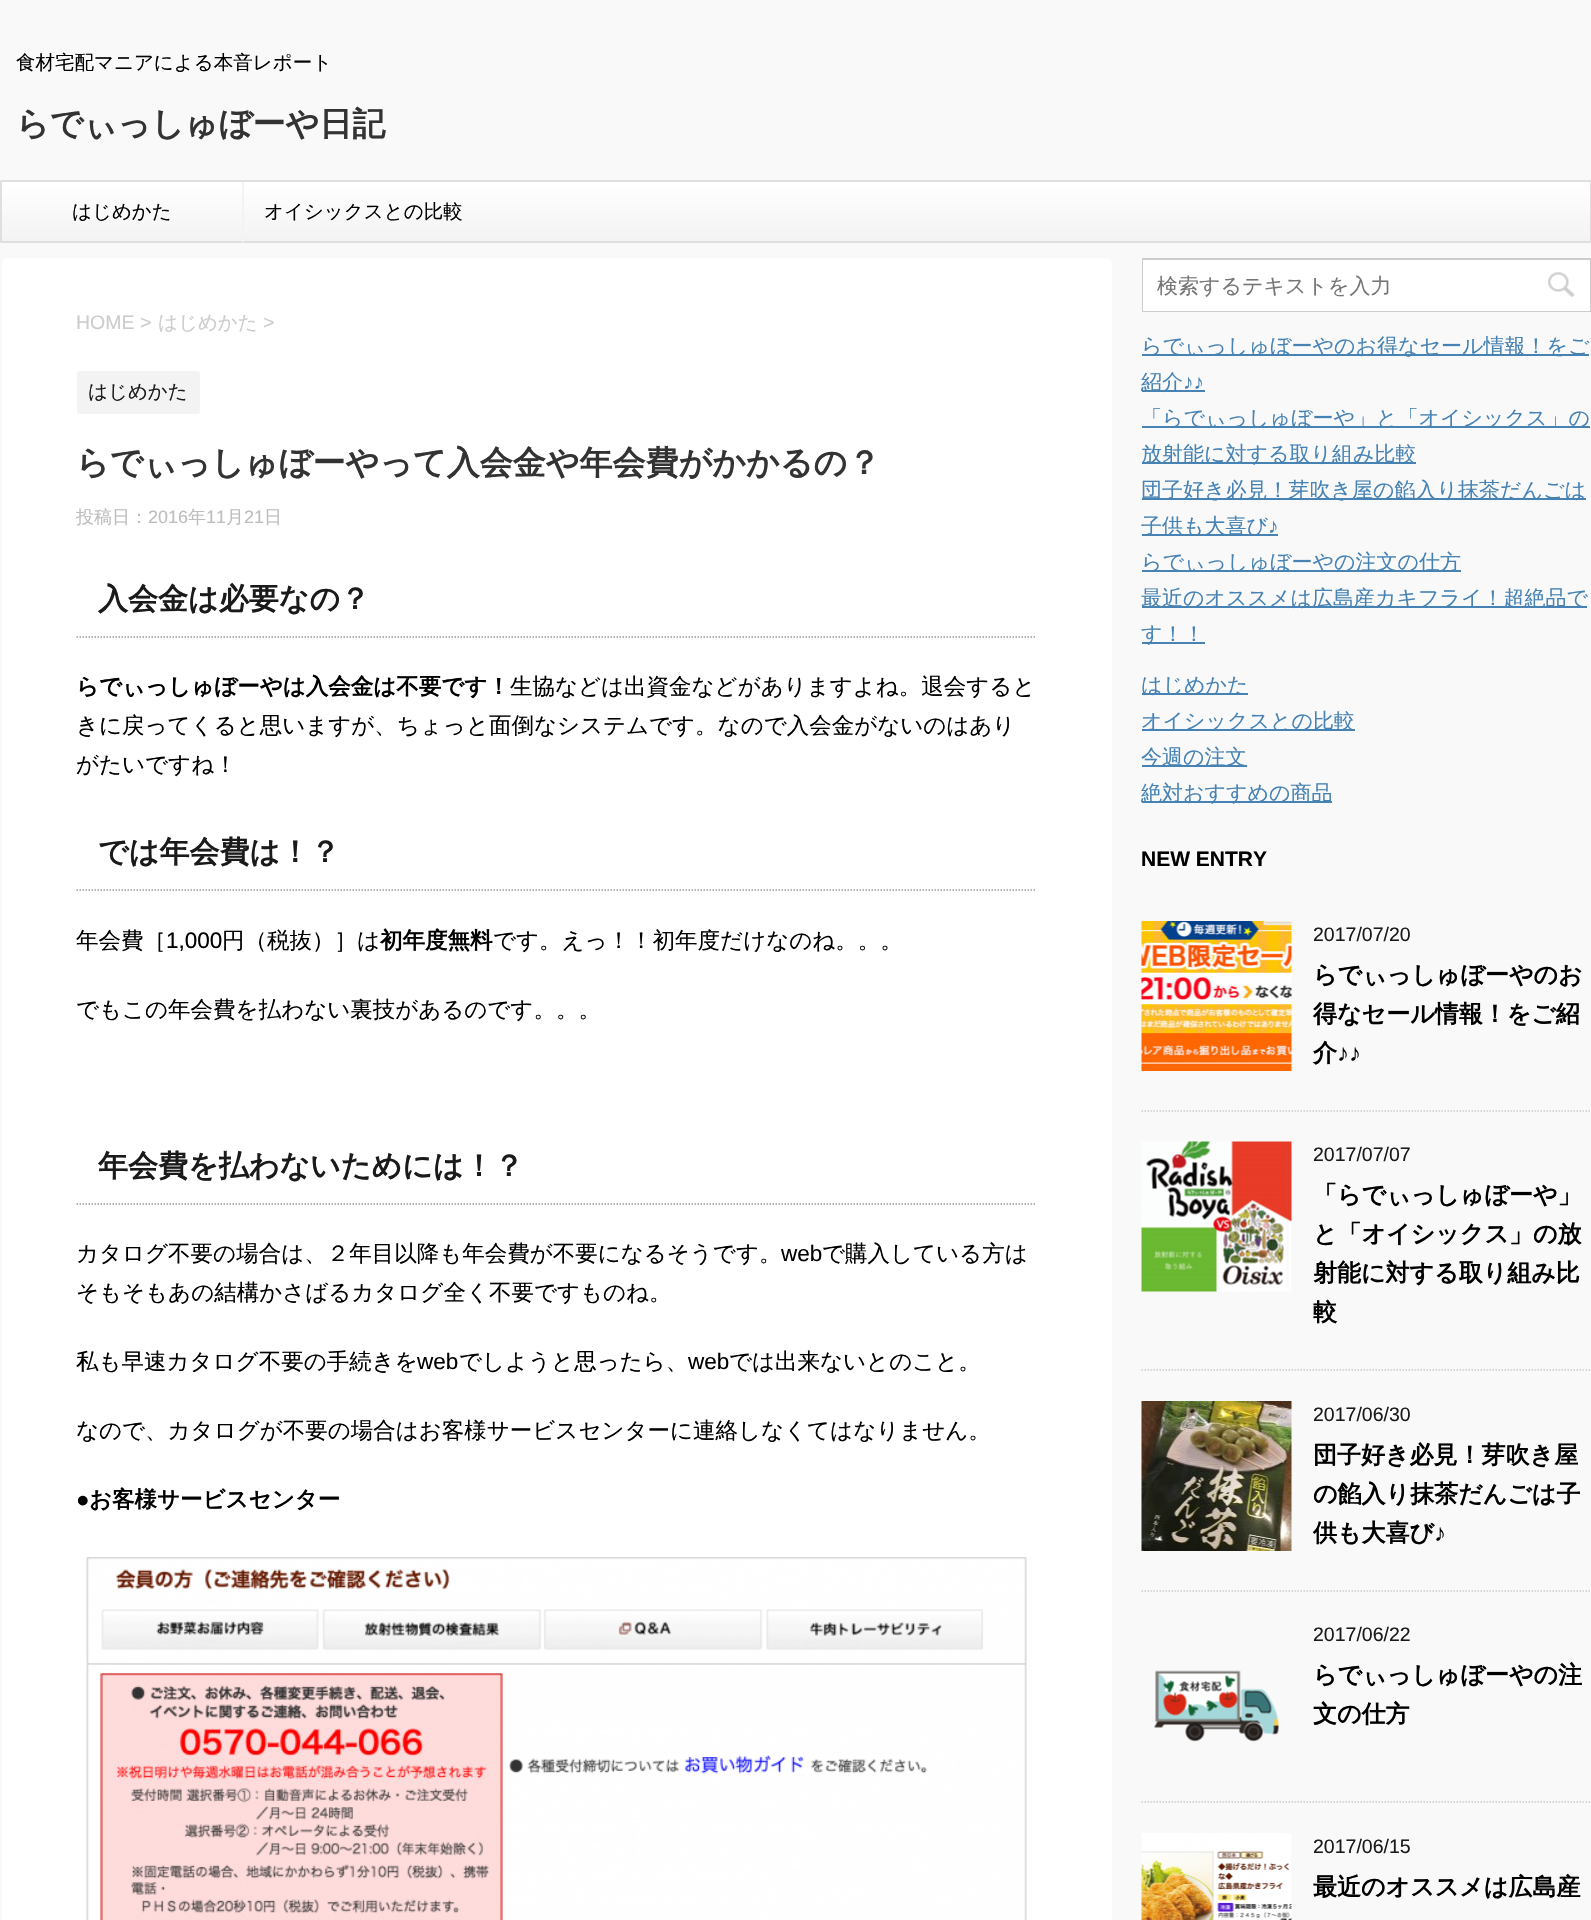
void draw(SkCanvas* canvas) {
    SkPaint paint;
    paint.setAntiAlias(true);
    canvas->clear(0xFFF9F9F9);
    SkFont font1(fontMgr->matchFamilyStyle("WenQuanYi Zen Hei", SkFontStyle(500, SkFontStyle::kNormal_Width, SkFontStyle::kUpright_Slant)), 19.5f);
    font1.setSubpixel(true);
    paint.setColor(0xFF000000);
    canvas->drawString("食材宅配マニアによる本音レポート", 16, 69, font1, paint);
    SkFont font2(fontMgr->matchFamilyStyle("WenQuanYi Zen Hei", SkFontStyle::Bold()), 33);
    font2.setSubpixel(true);
    paint.setColor(0xFF333333);
    canvas->drawString("らでぃっしゅぼーや日記", 16, 135, font2, paint);
    {
        const SkColor colors[] = {0xFFFFFFFF, 0xFFF3F3F3};
        const float stops[] = {0, 1};
        const SkPoint ends[] = {{796, 181}, {796, 242}};
        paint.setShader(SkGradientShader::MakeLinear(ends, colors, stops, 2, SkTileMode::kClamp));
        paint.setAlpha(255);
    }
    canvas->drawRect(SkRect::MakeXYWH(0, 182, 1590, 60), paint);
    paint.setStyle(SkPaint::kStroke_Style);
    paint.setStrokeWidth(2);
    paint.setShader(nullptr);
    paint.setColor(0xFFE0DEDE);
    canvas->drawRoundRect(SkRect::MakeXYWH(1, 181, 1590, 61), 0.5f, 0.5f, paint);
    paint.setStyle(SkPaint::kFill_Style);
    paint.setColor(0xFFF3F3F3);
    canvas->drawRect(SkRect::MakeXYWH(242, 182, 2, 60), paint);
    paint.setColor(0xFF000000);
    canvas->drawString("はじめかた", 72, 218, font1, paint);
    canvas->drawString("オイシックスとの比較", 264, 218, font1, paint);
    paint.setColor(0xFFFFFFFF);
    canvas->drawRoundRect(SkRect::MakeXYWH(2, 258, 1110, 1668), 6, 6, paint);
    SkFont font3(fontMgr->matchFamilyStyle("Liberation Sans", SkFontStyle::Normal()), 19.5f);
    font3.setSubpixel(true);
    paint.setColor(0xFFCCCCCC);
    canvas->drawString("HOME >", 76, 329, font3, paint);
    canvas->drawString("はじめかた", 158, 329, font1, paint);
    canvas->drawString(">", 263, 329, font3, paint);
    paint.setColor(0xFFF3F3F3);
    canvas->drawRoundRect(SkRect::MakeXYWH(77, 371, 123, 43), 3, 3, paint);
    paint.setColor(0xFF1A1A1A);
    canvas->drawString("はじめかた", 88, 398, font1, paint);
    paint.setColor(0xFF333333);
    canvas->drawString("らでぃっしゅぼーやって入会金や年会費がかかるの？", 76, 474, font2, paint);
    SkFont font4(fontMgr->matchFamilyStyle("WenQuanYi Zen Hei", SkFontStyle(500, SkFontStyle::kNormal_Width, SkFontStyle::kUpright_Slant)), 18);
    font4.setSubpixel(true);
    paint.setColor(0xFFBDBDBD);
    canvas->drawString("投稿日：", 76, 523, font4, paint);
    SkFont font5(fontMgr->matchFamilyStyle("Liberation Sans", SkFontStyle::Normal()), 18);
    font5.setSubpixel(true);
    canvas->drawString("2016", 148, 523, font5, paint);
    canvas->drawString("年", 188, 523, font4, paint);
    canvas->drawString("11", 206, 523, font5, paint);
    canvas->drawString("月", 226, 523, font4, paint);
    canvas->drawString("21", 244, 523, font5, paint);
    canvas->drawString("日", 264, 523, font4, paint);
    paint.setStyle(SkPaint::kStroke_Style);
    paint.setStrokeWidth(1.5f);
    paint.setColor(0xFF999999);
    paint.setPathEffect(SkDashPathEffect::Make({{1.5f, 1.5f}}, 0));
    canvas->drawPath(SkPathBuilder().moveTo(76.5f, 637).lineTo(1036.5f, 637).detach(), paint);
    paint.setPathEffect(nullptr);
    SkFont font6(fontMgr->matchFamilyStyle("WenQuanYi Zen Hei", SkFontStyle::Bold()), 30);
    font6.setSubpixel(true);
    paint.setStyle(SkPaint::kFill_Style);
    paint.setColor(0xFF1A1A1A);
    canvas->drawString("入会金は必要なの？", 98, 609, font6, paint);
    SkFont font7(fontMgr->matchFamilyStyle("WenQuanYi Zen Hei", SkFontStyle::Bold()), 22.5f);
    font7.setSubpixel(true);
    paint.setColor(0xFF000000);
    canvas->drawString("らでぃっしゅぼーやは入会金は不要です！", 76, 694, font7, paint);
    SkFont font8(fontMgr->matchFamilyStyle("WenQuanYi Zen Hei", SkFontStyle(500, SkFontStyle::kNormal_Width, SkFontStyle::kUpright_Slant)), 22.5f);
    font8.setSubpixel(true);
    canvas->drawString("生協などは出資金などがありますよね。退会すると", 510, 694, font8, paint);
    canvas->drawString("きに戻ってくると思いますが、ちょっと面倒なシステムです。なので入会金がないのはあり", 76, 733, font8, paint);
    canvas->drawString("がたいですね！", 76, 772, font8, paint);
    paint.setStyle(SkPaint::kStroke_Style);
    paint.setColor(0xFF999999);
    paint.setPathEffect(SkDashPathEffect::Make({{1.5f, 1.5f}}, 0));
    canvas->drawPath(SkPathBuilder().moveTo(76.5f, 890).lineTo(1036.5f, 890).detach(), paint);
    paint.setPathEffect(nullptr);
    paint.setStyle(SkPaint::kFill_Style);
    paint.setColor(0xFF1A1A1A);
    canvas->drawString("では年会費は！？", 98, 862, font6, paint);
    paint.setColor(0xFF000000);
    canvas->drawString("年会費［", 76, 948, font8, paint);
    SkFont font9(fontMgr->matchFamilyStyle("Liberation Sans", SkFontStyle::Normal()), 22.5f);
    font9.setSubpixel(true);
    canvas->drawString("1,000", 166, 948, font9, paint);
    canvas->drawString("円（税抜）］は", 222, 948, font8, paint);
    canvas->drawString("初年度無料", 380, 948, font7, paint);
    canvas->drawString("です。えっ！！初年度だけなのね。。。", 493, 948, font8, paint);
    canvas->drawString("でもこの年会費を払わない裏技があるのです。。。", 76, 1017, font8, paint);
    paint.setStyle(SkPaint::kStroke_Style);
    paint.setColor(0xFF999999);
    paint.setPathEffect(SkDashPathEffect::Make({{1.5f, 1.5f}}, 0));
    canvas->drawPath(SkPathBuilder().moveTo(76.5f, 1204).lineTo(1036.5f, 1204).detach(), paint);
    paint.setPathEffect(nullptr);
    paint.setStyle(SkPaint::kFill_Style);
    paint.setColor(0xFF1A1A1A);
    canvas->drawString("年会費を払わないためには！？", 98, 1176, font6, paint);
    paint.setColor(0xFF000000);
    canvas->drawString("カタログ不要の場合は、２年目以降も年会費が不要になるそうです。", 76, 1261, font8, paint);
    canvas->drawString("web", 781, 1261, font9, paint);
    canvas->drawString("で購入している方は", 822, 1261, font8, paint);
    canvas->drawString("そもそもあの結構かさばるカタログ全く不要ですものね。", 76, 1300, font8, paint);
    canvas->drawString("私も早速カタログ不要の手続きを", 76, 1369, font8, paint);
    canvas->drawString("web", 417, 1369, font9, paint);
    canvas->drawString("でしようと思ったら、", 459, 1369, font8, paint);
    canvas->drawString("web", 688, 1369, font9, paint);
    canvas->drawString("では出来ないとのこと。", 729, 1369, font8, paint);
    canvas->drawString("なので、カタログが不要の場合はお客様サービスセンターに連絡しなくてはなりません。", 76, 1438, font8, paint);
    SkFont font10(fontMgr->matchFamilyStyle("Liberation Sans", SkFontStyle::Bold()), 22.5f);
    font10.setSubpixel(true);
    canvas->drawString("●", 76, 1507, font10, paint);
    canvas->drawString("お客様サービスセンター", 89, 1507, font7, paint);
    canvas->drawImageRect(SkImages::DeferredFromEncodedData(SkData::MakeFromFileName("img1.png")), SkRect::MakeXYWH(86, 1557, 941, 363), SkSamplingOptions());
    paint.setStyle(SkPaint::kStroke_Style);
    paint.setStrokeWidth(2);
    paint.setColor(0xFFCCCCCC);
    canvas->drawRect(SkRect::MakeXYWH(1143, 259, 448, 52), paint);
    paint.setStyle(SkPaint::kFill_Style);
    paint.setColor(0xFFFFFFFF);
    canvas->drawRect(SkRect::MakeXYWH(1143, 260, 447, 51), paint);
    SkFont font11(fontMgr->matchFamilyStyle("WenQuanYi Zen Hei", SkFontStyle(500, SkFontStyle::kNormal_Width, SkFontStyle::kUpright_Slant)), 21);
    font11.setSubpixel(true);
    paint.setColor(0xFF757575);
    canvas->drawString("検索するテキストを入力", 1157, 293, font11, paint);
    canvas->drawImageRect(SkImages::DeferredFromEncodedData(SkData::MakeFromFileName("img2.png")), SkRect::MakeXYWH(1548, 272, 27, 25), SkSamplingOptions());
    paint.setColor(0xFF4682B4);
    canvas->drawRect(SkRect::MakeXYWH(1142, 354, 447, 2), paint);
    canvas->drawString("らでぃっしゅぼーやのお得なセール情報！をご", 1141, 353, font11, paint);
    canvas->drawRect(SkRect::MakeXYWH(1142, 390, 63, 2), paint);
    canvas->drawString("紹介", 1141, 389, font11, paint);
    SkFont font12(fontMgr->matchFamilyStyle("Liberation Sans", SkFontStyle::Normal()), 21);
    font12.setSubpixel(true);
    canvas->drawString("♪♪", 1183, 389, font12, paint);
    canvas->drawRect(SkRect::MakeXYWH(1142, 426, 448, 2), paint);
    canvas->drawString("「らでぃっしゅぼーや」と「オイシックス」の", 1141, 425, font11, paint);
    canvas->drawRect(SkRect::MakeXYWH(1142, 462, 274, 2), paint);
    canvas->drawString("放射能に対する取り組み比較", 1141, 461, font11, paint);
    canvas->drawRect(SkRect::MakeXYWH(1142, 498, 444, 2), paint);
    canvas->drawString("団子好き必見！芽吹き屋の餡入り抹茶だんごは", 1141, 497, font11, paint);
    canvas->drawRect(SkRect::MakeXYWH(1142, 534, 136, 2), paint);
    canvas->drawString("子供も大喜び", 1141, 533, font11, paint);
    canvas->drawString("♪", 1268, 533, font12, paint);
    canvas->drawRect(SkRect::MakeXYWH(1142, 570, 319, 2), paint);
    canvas->drawString("らでぃっしゅぼーやの注文の仕方", 1141, 569, font11, paint);
    canvas->drawRect(SkRect::MakeXYWH(1142, 606, 445, 2), paint);
    canvas->drawString("最近のオススメは広島産カキフライ！超絶品で", 1141, 605, font11, paint);
    canvas->drawRect(SkRect::MakeXYWH(1142, 642, 63, 2), paint);
    canvas->drawString("す！！", 1141, 641, font11, paint);
    canvas->drawRect(SkRect::MakeXYWH(1142, 693, 106, 2), paint);
    canvas->drawString("はじめかた", 1141, 692, font11, paint);
    canvas->drawRect(SkRect::MakeXYWH(1142, 729, 213, 2), paint);
    canvas->drawString("オイシックスとの比較", 1141, 728, font11, paint);
    canvas->drawRect(SkRect::MakeXYWH(1142, 765, 105, 2), paint);
    canvas->drawString("今週の注文", 1141, 764, font11, paint);
    canvas->drawRect(SkRect::MakeXYWH(1142, 801, 190, 2), paint);
    canvas->drawString("絶対おすすめの商品", 1141, 800, font11, paint);
    SkFont font13(fontMgr->matchFamilyStyle("Liberation Sans", SkFontStyle::Bold()), 21);
    font13.setSubpixel(true);
    paint.setColor(0xFF000000);
    canvas->drawString("NEW ENTRY", 1141, 866, font13, paint);
    paint.setStyle(SkPaint::kStroke_Style);
    paint.setStrokeWidth(1.5f);
    paint.setColor(0xFFCCCCCC);
    paint.setPathEffect(SkDashPathEffect::Make({{1.5f, 1.5f}}, 0));
    canvas->drawPath(SkPathBuilder().moveTo(1141.5f, 1111).lineTo(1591.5f, 1111).detach(), paint);
    paint.setPathEffect(nullptr);
    canvas->drawImageRect(SkImages::DeferredFromEncodedData(SkData::MakeFromFileName("img3.png")), SkRect::MakeXYWH(1141, 921, 151, 150), SkSamplingOptions());
    paint.setStyle(SkPaint::kFill_Style);
    paint.setColor(0xFF1A1A1A);
    canvas->drawString("2017/07/20", 1313, 941, font3, paint);
    SkFont font14(fontMgr->matchFamilyStyle("WenQuanYi Zen Hei", SkFontStyle::Bold()), 24);
    font14.setSubpixel(true);
    paint.setColor(0xFF000000);
    canvas->drawString("らでぃっしゅぼーやのお", 1313, 983, font14, paint);
    canvas->drawString("得なセール情報！をご紹", 1313, 1022, font14, paint);
    canvas->drawString("介", 1313, 1061, font14, paint);
    SkFont font15(fontMgr->matchFamilyStyle("Liberation Sans", SkFontStyle::Bold()), 24);
    font15.setSubpixel(true);
    canvas->drawString("♪♪", 1337, 1061, font15, paint);
    paint.setStyle(SkPaint::kStroke_Style);
    paint.setColor(0xFFCCCCCC);
    paint.setPathEffect(SkDashPathEffect::Make({{1.5f, 1.5f}}, 0));
    canvas->drawPath(SkPathBuilder().moveTo(1141.5f, 1370).lineTo(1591.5f, 1370).detach(), paint);
    paint.setPathEffect(nullptr);
    canvas->drawImageRect(SkImages::DeferredFromEncodedData(SkData::MakeFromFileName("img4.png")), SkRect::MakeXYWH(1141, 1141, 151, 151), SkSamplingOptions());
    paint.setStyle(SkPaint::kFill_Style);
    paint.setColor(0xFF1A1A1A);
    canvas->drawString("2017/07/07", 1313, 1161, font3, paint);
    paint.setColor(0xFF000000);
    canvas->drawString("「らでぃっしゅぼーや」", 1313, 1203, font14, paint);
    canvas->drawString("と「オイシックス」の放", 1313, 1242, font14, paint);
    canvas->drawString("射能に対する取り組み比", 1313, 1281, font14, paint);
    canvas->drawString("較", 1313, 1320, font14, paint);
    paint.setStyle(SkPaint::kStroke_Style);
    paint.setColor(0xFFCCCCCC);
    paint.setPathEffect(SkDashPathEffect::Make({{1.5f, 1.5f}}, 0));
    canvas->drawPath(SkPathBuilder().moveTo(1141.5f, 1591).lineTo(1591.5f, 1591).detach(), paint);
    paint.setPathEffect(nullptr);
    canvas->drawImageRect(SkImages::DeferredFromEncodedData(SkData::MakeFromFileName("img5.png")), SkRect::MakeXYWH(1141, 1401, 151, 150), SkSamplingOptions());
    paint.setStyle(SkPaint::kFill_Style);
    paint.setColor(0xFF1A1A1A);
    canvas->drawString("2017/06/30", 1313, 1421, font3, paint);
    paint.setColor(0xFF000000);
    canvas->drawString("団子好き必見！芽吹き屋", 1313, 1463, font14, paint);
    canvas->drawString("の餡入り抹茶だんごは子", 1313, 1502, font14, paint);
    canvas->drawString("供も大喜び", 1313, 1541, font14, paint);
    canvas->drawString("♪", 1434, 1541, font15, paint);
    paint.setStyle(SkPaint::kStroke_Style);
    paint.setColor(0xFFCCCCCC);
    paint.setPathEffect(SkDashPathEffect::Make({{1.5f, 1.5f}}, 0));
    canvas->drawPath(SkPathBuilder().moveTo(1141.5f, 1802).lineTo(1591.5f, 1802).detach(), paint);
    paint.setPathEffect(nullptr);
    canvas->drawImageRect(SkImages::DeferredFromEncodedData(SkData::MakeFromFileName("img6.png")), SkRect::MakeXYWH(1154, 1670, 125, 72), SkSamplingOptions());
    paint.setStyle(SkPaint::kFill_Style);
    paint.setColor(0xFF1A1A1A);
    canvas->drawString("2017/06/22", 1313, 1641, font3, paint);
    paint.setColor(0xFF000000);
    canvas->drawString("らでぃっしゅぼーやの注", 1313, 1683, font14, paint);
    canvas->drawString("文の仕方", 1313, 1722, font14, paint);
    canvas->drawImageRect(SkImages::DeferredFromEncodedData(SkData::MakeFromFileName("img7.png")), SkRect::MakeXYWH(1141, 1833, 151, 87), SkSamplingOptions());
    paint.setColor(0xFF1A1A1A);
    canvas->drawString("2017/06/15", 1313, 1853, font3, paint);
    paint.setColor(0xFF000000);
    canvas->drawString("最近のオススメは広島産", 1313, 1895, font14, paint);
}
